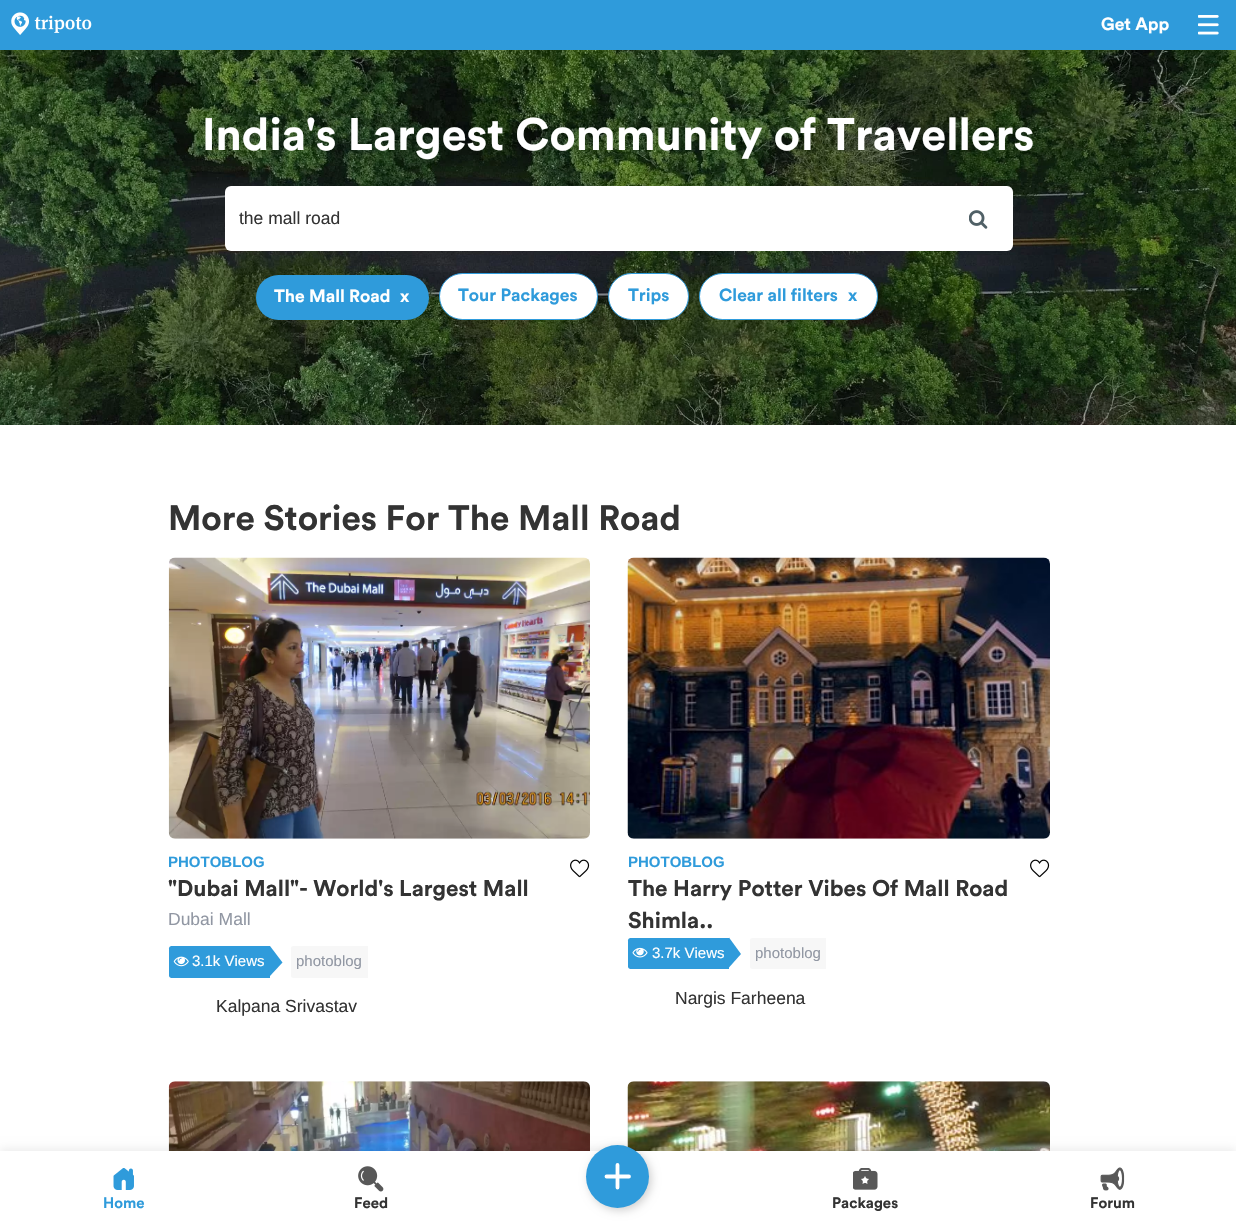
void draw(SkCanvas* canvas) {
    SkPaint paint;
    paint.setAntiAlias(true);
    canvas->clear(0xFFFFFFFF);
    paint.setColor(0xFF2F9BDB);
    canvas->drawRect(SkRect::MakeXYWH(0, 0, 1236, 50), paint);
    canvas->drawImageRect(SkImages::DeferredFromEncodedData(SkData::MakeFromFileName("img1.png")), SkRect::MakeXYWH(11, 12, 81, 23), SkSamplingOptions());
    SkFont font1(fontMgr->matchFamilyStyle("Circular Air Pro", SkFontStyle::Bold()), 17.5f);
    font1.setSubpixel(true);
    paint.setColor(0xFFFFFFFF);
    canvas->drawString("Get App", 1101, 30, font1, paint);
    canvas->drawImageRect(SkImages::DeferredFromEncodedData(SkData::MakeFromFileName("img2.png")), SkRect::MakeXYWH(1198, 15, 21, 20), SkSamplingOptions());
    canvas->drawImageRect(SkImages::DeferredFromEncodedData(SkData::MakeFromFileName("img3.png")), SkRect::MakeXYWH(0, 50, 1236, 375), SkSamplingOptions());
    SkFont font2(fontMgr->matchFamilyStyle("Circular Air Pro", SkFontStyle::Bold()), 45);
    font2.setSubpixel(true);
    canvas->drawString("India's Largest Community of Travellers", 202, 150, font2, paint);
    canvas->drawRoundRect(SkRect::MakeXYWH(225, 186, 788, 65), 6, 6, paint);
    SkFont font3(fontMgr->matchFamilyStyle("Liberation Sans", SkFontStyle::Normal()), 17.5f);
    font3.setSubpixel(true);
    paint.setColor(0xFF333333);
    canvas->drawString("the mall road", 239, 224, font3, paint);
    canvas->drawImageRect(SkImages::DeferredFromEncodedData(SkData::MakeFromFileName("img4.png")), SkRect::MakeXYWH(969, 210, 19, 19), SkSamplingOptions());
    paint.setColor(0xFF2F9BDB);
    canvas->drawRoundRect(SkRect::MakeXYWH(256, 275, 173, 45), 22.5f, 22.5f, paint);
    paint.setColor(0xFFFFFFFF);
    canvas->drawString("The Mall Road", 274, 302, font1, paint);
    canvas->drawString("x", 400, 302, font1, paint);
    canvas->drawRoundRect(SkRect::MakeXYWH(439.5f, 273.5f, 158, 46), 23, 23, paint);
    paint.setStyle(SkPaint::kStroke_Style);
    paint.setStrokeWidth(1);
    paint.setColor(0xFF2F9BDB);
    canvas->drawRoundRect(SkRect::MakeXYWH(439.5f, 273.5f, 158, 46), 23, 23, paint);
    paint.setStyle(SkPaint::kFill_Style);
    canvas->drawString("Tour Packages", 458, 301, font1, paint);
    paint.setColor(0xFFFFFFFF);
    canvas->drawRoundRect(SkRect::MakeXYWH(608.5f, 273.5f, 80, 46), 23, 23, paint);
    paint.setStyle(SkPaint::kStroke_Style);
    paint.setColor(0xFF2F9BDB);
    canvas->drawRoundRect(SkRect::MakeXYWH(608.5f, 273.5f, 80, 46), 23, 23, paint);
    paint.setStyle(SkPaint::kFill_Style);
    canvas->drawString("Trips", 628, 301, font1, paint);
    paint.setColor(0xFFFFFFFF);
    canvas->drawRoundRect(SkRect::MakeXYWH(699.5f, 273.5f, 178, 46), 23, 23, paint);
    paint.setStyle(SkPaint::kStroke_Style);
    paint.setColor(0xFF2F9BDB);
    canvas->drawRoundRect(SkRect::MakeXYWH(699.5f, 273.5f, 178, 46), 23, 23, paint);
    paint.setStyle(SkPaint::kFill_Style);
    canvas->drawString("Clear all filters", 719, 301, font1, paint);
    canvas->drawString("x", 848, 301, font1, paint);
    SkFont font4(fontMgr->matchFamilyStyle("Circular Air Pro", SkFontStyle::Bold()), 35);
    font4.setSubpixel(true);
    paint.setColor(0xFF333333);
    canvas->drawString("More Stories For The Mall Road", 168, 530, font4, paint);
    canvas->drawImageRect(SkImages::DeferredFromEncodedData(SkData::MakeFromFileName("img5.png")), SkRect::MakeXYWH(168, 557, 422, 282), SkSamplingOptions());
    SkFont font5(fontMgr->matchFamilyStyle("Liberation Sans", SkFontStyle::Bold()), 15);
    font5.setSubpixel(true);
    paint.setColor(0xFF2F9BDB);
    canvas->drawString("PHOTOBLOG", 168, 867, font5, paint);
    canvas->drawImageRect(SkImages::DeferredFromEncodedData(SkData::MakeFromFileName("img6.png")), SkRect::MakeXYWH(570, 859, 20, 19), SkSamplingOptions());
    SkFont font6(fontMgr->matchFamilyStyle("Circular Air Pro", SkFontStyle::Bold()), 22.5f);
    font6.setSubpixel(true);
    paint.setColor(0xFF333333);
    canvas->drawString("\"Dubai Mall\"- World's Largest Mall", 168, 896, font6, paint);
    paint.setColor(0xFF9197A3);
    canvas->drawString("Dubai Mall", 168, 925, font3, paint);
    paint.setColor(0xFF2F9BDB);
    canvas->drawPath(SkPathBuilder().moveTo(171.5f, 946).lineTo(270, 946).lineTo(270, 978).lineTo(171.5f, 978).cubicTo(170, 978, 169, 977, 169, 975.5f).lineTo(169, 948.5f).cubicTo(169, 947, 170, 946, 171.5f, 946).close().detach(), paint);
    canvas->drawImageRect(SkImages::DeferredFromEncodedData(SkData::MakeFromFileName("img7.png")), SkRect::MakeXYWH(173, 956, 16, 11), SkSamplingOptions());
    SkFont font7(fontMgr->matchFamilyStyle("Liberation Sans", SkFontStyle::Normal()), 15);
    font7.setSubpixel(true);
    paint.setColor(0xFFFFFFFF);
    canvas->drawString("3.1k Views", 192, 966, font7, paint);
    paint.setColor(0xFF2F9BDB);
    canvas->drawPath(SkPathBuilder().moveTo(270, 976).lineTo(270, 946).lineTo(282.5f, 962.5f).close().detach(), paint);
    paint.setColor(0xFFF7F7F7);
    canvas->drawPath(SkPathBuilder().moveTo(293.5f, 946).lineTo(368, 946).lineTo(368, 978).lineTo(293.5f, 978).cubicTo(292, 978, 291, 977, 291, 975.5f).lineTo(291, 948.5f).cubicTo(291, 947, 292, 946, 293.5f, 946).close().detach(), paint);
    paint.setColor(0xFF9197A3);
    canvas->drawString("photoblog", 296, 966, font7, paint);
    paint.setColor(0xFF333333);
    canvas->drawString("Kalpana Srivastav", 216, 1012, font3, paint);
    canvas->drawImageRect(SkImages::DeferredFromEncodedData(SkData::MakeFromFileName("img8.png")), SkRect::MakeXYWH(627, 557, 423, 282), SkSamplingOptions());
    paint.setColor(0xFF2F9BDB);
    canvas->drawString("PHOTOBLOG", 628, 867, font5, paint);
    canvas->drawImageRect(SkImages::DeferredFromEncodedData(SkData::MakeFromFileName("img6.png")), SkRect::MakeXYWH(1030, 859, 20, 19), SkSamplingOptions());
    paint.setColor(0xFF333333);
    canvas->drawString("The Harry Potter Vibes Of Mall Road", 628, 896, font6, paint);
    canvas->drawString("Shimla..", 628, 928, font6, paint);
    paint.setColor(0xFF2F9BDB);
    canvas->drawPath(SkPathBuilder().moveTo(630.5f, 938).lineTo(729, 938).lineTo(729, 969).lineTo(630.5f, 969).cubicTo(629, 969, 628, 968, 628, 966.5f).lineTo(628, 940.5f).cubicTo(628, 939, 629, 938, 630.5f, 938).close().detach(), paint);
    canvas->drawImageRect(SkImages::DeferredFromEncodedData(SkData::MakeFromFileName("img9.png")), SkRect::MakeXYWH(632, 947, 16, 11), SkSamplingOptions());
    paint.setColor(0xFFFFFFFF);
    canvas->drawString("3.7k Views", 652, 958, font7, paint);
    paint.setColor(0xFF2F9BDB);
    canvas->drawPath(SkPathBuilder().moveTo(729, 967.5f).lineTo(729, 937.5f).lineTo(741, 954).close().detach(), paint);
    paint.setColor(0xFFF7F7F7);
    canvas->drawPath(SkPathBuilder().moveTo(752.5f, 938).lineTo(826, 938).lineTo(826, 969).lineTo(752.5f, 969).cubicTo(751, 969, 750, 968, 750, 966.5f).lineTo(750, 940.5f).cubicTo(750, 939, 751, 938, 752.5f, 938).close().detach(), paint);
    paint.setColor(0xFF9197A3);
    canvas->drawString("photoblog", 755, 958, font7, paint);
    paint.setColor(0xFF333333);
    canvas->drawString("Nargis Farheena", 675, 1004, font3, paint);
    canvas->drawImageRect(SkImages::DeferredFromEncodedData(SkData::MakeFromFileName("img10.png")), SkRect::MakeXYWH(168, 1081, 422, 70), SkSamplingOptions());
    canvas->drawImageRect(SkImages::DeferredFromEncodedData(SkData::MakeFromFileName("img11.png")), SkRect::MakeXYWH(627, 1081, 423, 70), SkSamplingOptions());
    paint.setColor(0x14000000);
    paint.setMaskFilter(SkMaskFilter::MakeBlur(kNormal_SkBlurStyle, 4.5f));
    canvas->drawRect(SkRect::MakeXYWH(0, 1149, 1236, 75), paint);
    paint.setMaskFilter(nullptr);
    paint.setColor(0xFFFFFFFF);
    canvas->drawRect(SkRect::MakeXYWH(0, 1151, 1236, 75), paint);
    canvas->drawImageRect(SkImages::DeferredFromEncodedData(SkData::MakeFromFileName("img12.png")), SkRect::MakeXYWH(113, 1168, 21, 22), SkSamplingOptions());
    SkFont font8(fontMgr->matchFamilyStyle("Circular Air Pro", SkFontStyle::Bold()), 15);
    font8.setSubpixel(true);
    paint.setColor(0xFF2F9BDB);
    canvas->drawString("Home", 103, 1208, font8, paint);
    canvas->drawImageRect(SkImages::DeferredFromEncodedData(SkData::MakeFromFileName("img13.png")), SkRect::MakeXYWH(358, 1166, 26, 26), SkSamplingOptions());
    paint.setColor(0xFF333333);
    canvas->drawString("Feed", 354, 1208, font8, paint);
    paint.setColor(0x33000000);
    paint.setMaskFilter(SkMaskFilter::MakeBlur(kNormal_SkBlurStyle, 5));
    canvas->drawRoundRect(SkRect::MakeXYWH(589, 1148, 62, 62), 31, 31, paint);
    paint.setMaskFilter(nullptr);
    paint.setColor(0xFF2F9BDB);
    canvas->drawCircle(617.5f, 1176.5f, 31.5f, paint);
    paint.setStyle(SkPaint::kStroke_Style);
    paint.setStrokeWidth(3.8f);
    paint.setStrokeCap(SkPaint::kRound_Cap);
    paint.setColor(0xFFFFFFFF);
    canvas->drawPath(SkPathBuilder().moveTo(617.5f, 1165).lineTo(617.5f, 1187.5f).moveTo(629, 1176.5f).lineTo(606.5f, 1176.5f).detach(), paint);
    canvas->drawImageRect(SkImages::DeferredFromEncodedData(SkData::MakeFromFileName("img14.png")), SkRect::MakeXYWH(853, 1168, 25, 22), SkSamplingOptions());
    paint.setStyle(SkPaint::kFill_Style);
    paint.setColor(0xFF333333);
    canvas->drawString("Packages", 832, 1208, font8, paint);
    canvas->drawImageRect(SkImages::DeferredFromEncodedData(SkData::MakeFromFileName("img15.png")), SkRect::MakeXYWH(1100, 1167, 25, 24), SkSamplingOptions());
    canvas->drawString("Forum", 1090, 1208, font8, paint);
}
